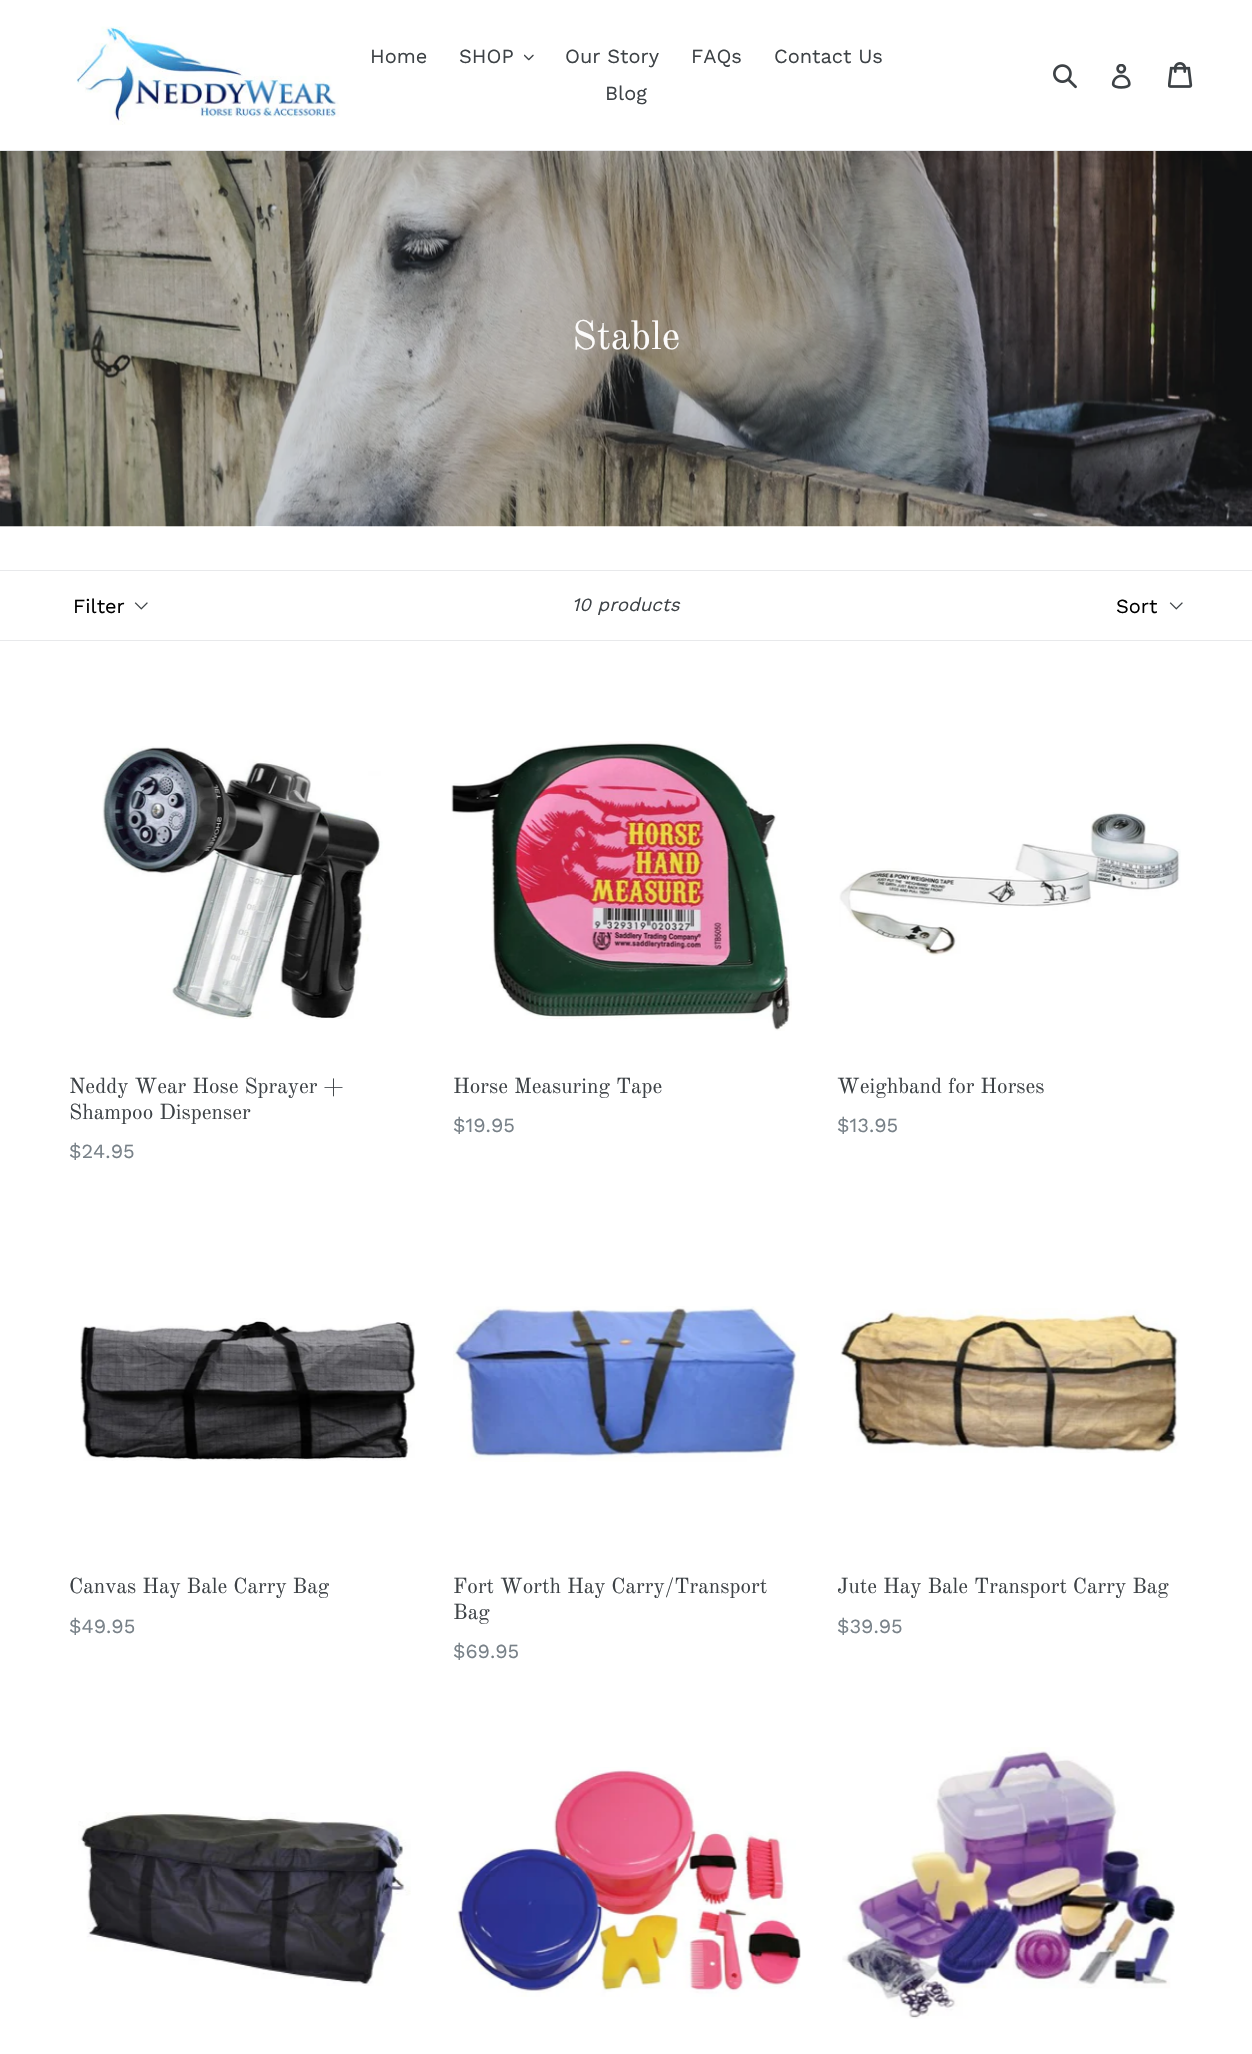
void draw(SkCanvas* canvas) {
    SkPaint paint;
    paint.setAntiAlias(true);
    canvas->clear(0xFFFFFFFF);
    paint.setColor(0xFFE8E9EB);
    canvas->drawRect(SkRect::MakeXYWH(0, 150, 1252, 1), paint);
    canvas->drawImageRect(SkImages::DeferredFromEncodedData(SkData::MakeFromFileName("img1.png")), SkRect::MakeXYWH(76, 26, 264, 99), SkSamplingOptions());
    SkFont font1(fontMgr->matchFamilyStyle("Work Sans", SkFontStyle::Normal()), 20);
    font1.setSubpixel(true);
    paint.setColor(0xFF3D4246);
    canvas->drawString("Home", 370, 63, font1, paint);
    canvas->drawString("SHOP", 459, 63, font1, paint);
    canvas->drawImageRect(SkImages::DeferredFromEncodedData(SkData::MakeFromFileName("img2.png")), SkRect::MakeXYWH(524, 54, 10, 7), SkSamplingOptions());
    canvas->drawString("Our Story", 565, 63, font1, paint);
    canvas->drawString("FAQs", 691, 63, font1, paint);
    canvas->drawString("Contact Us", 774, 63, font1, paint);
    canvas->drawString("Blog", 605, 100, font1, paint);
    canvas->drawImageRect(SkImages::DeferredFromEncodedData(SkData::MakeFromFileName("img3.png")), SkRect::MakeXYWH(1053, 64, 24, 25), SkSamplingOptions());
    canvas->drawImageRect(SkImages::DeferredFromEncodedData(SkData::MakeFromFileName("img4.png")), SkRect::MakeXYWH(1111, 64, 20, 25), SkSamplingOptions());
    canvas->drawImageRect(SkImages::DeferredFromEncodedData(SkData::MakeFromFileName("img5.png")), SkRect::MakeXYWH(1168, 62, 25, 26), SkSamplingOptions());
    canvas->drawImageRect(SkImages::DeferredFromEncodedData(SkData::MakeFromFileName("img6.png")), SkRect::MakeXYWH(0, 151, 1252, 376), SkSamplingOptions());
    SkFont font2(fontMgr->matchFamilyStyle("Old Standard TT", SkFontStyle::Normal()), 40);
    font2.setSubpixel(true);
    paint.setColor(0xFFFCFBFB);
    canvas->drawString("Stable", 572, 349, font2, paint);
    paint.setColor(0xFFE8E9EB);
    canvas->drawRect(SkRect::MakeXYWH(0, 570, 1252, 1), paint);
    canvas->drawRect(SkRect::MakeXYWH(0, 640, 1252, 1), paint);
    canvas->drawImageRect(SkImages::DeferredFromEncodedData(SkData::MakeFromFileName("img7.png")), SkRect::MakeXYWH(134, 602, 14, 8), SkSamplingOptions());
    paint.setColor(0xFF000000);
    canvas->drawString("Filter", 73, 613, font1, paint);
    SkFont font3(fontMgr->matchFamilyStyle("Work Sans", SkFontStyle::Italic()), 18.75f);
    font3.setSubpixel(true);
    paint.setColor(0xFF3D4246);
    canvas->drawString("10 products", 572, 611, font3, paint);
    canvas->drawImageRect(SkImages::DeferredFromEncodedData(SkData::MakeFromFileName("img7.png")), SkRect::MakeXYWH(1169, 602, 14, 8), SkSamplingOptions());
    paint.setColor(0xFF000000);
    canvas->drawString("Sort", 1116, 613, font1, paint);
    canvas->drawImageRect(SkImages::DeferredFromEncodedData(SkData::MakeFromFileName("img8.png")), SkRect::MakeXYWH(102, 746, 281, 274), SkSamplingOptions());
    SkFont font4(fontMgr->matchFamilyStyle("Old Standard TT", SkFontStyle::Normal()), 21.25f);
    font4.setSubpixel(true);
    paint.setColor(0xFF3D4246);
    canvas->drawString("Neddy Wear Hose Sprayer +", 69, 1093, font4, paint);
    canvas->drawString("Shampoo Dispenser", 69, 1119, font4, paint);
    paint.setColor(0xFF788188);
    canvas->drawString("$24.95", 69, 1158, font1, paint);
    canvas->drawImageRect(SkImages::DeferredFromEncodedData(SkData::MakeFromFileName("img9.png")), SkRect::MakeXYWH(451, 741, 341, 290), SkSamplingOptions());
    paint.setColor(0xFF3D4246);
    canvas->drawString("Horse Measuring Tape", 453, 1093, font4, paint);
    paint.setColor(0xFF788188);
    canvas->drawString("$19.95", 453, 1132, font1, paint);
    canvas->drawImageRect(SkImages::DeferredFromEncodedData(SkData::MakeFromFileName("img10.png")), SkRect::MakeXYWH(839, 812, 342, 144), SkSamplingOptions());
    paint.setColor(0xFF3D4246);
    canvas->drawString("Weighband for Horses", 837, 1093, font4, paint);
    paint.setColor(0xFF788188);
    canvas->drawString("$13.95", 837, 1132, font1, paint);
    canvas->drawImageRect(SkImages::DeferredFromEncodedData(SkData::MakeFromFileName("img11.png")), SkRect::MakeXYWH(80, 1318, 336, 143), SkSamplingOptions());
    paint.setColor(0xFF3D4246);
    canvas->drawString("Canvas Hay Bale Carry Bag", 69, 1593, font4, paint);
    paint.setColor(0xFF788188);
    canvas->drawString("$49.95", 69, 1633, font1, paint);
    canvas->drawImageRect(SkImages::DeferredFromEncodedData(SkData::MakeFromFileName("img12.png")), SkRect::MakeXYWH(453, 1306, 347, 156), SkSamplingOptions());
    paint.setColor(0xFF3D4246);
    canvas->drawString("Fort Worth Hay Carry/Transport", 453, 1593, font4, paint);
    canvas->drawString("Bag", 453, 1619, font4, paint);
    paint.setColor(0xFF788188);
    canvas->drawString("$69.95", 453, 1658, font1, paint);
    canvas->drawImageRect(SkImages::DeferredFromEncodedData(SkData::MakeFromFileName("img13.png")), SkRect::MakeXYWH(840, 1308, 340, 145), SkSamplingOptions());
    paint.setColor(0xFF3D4246);
    canvas->drawString("Jute Hay Bale Transport Carry Bag", 837, 1593, font4, paint);
    paint.setColor(0xFF788188);
    canvas->drawString("$39.95", 837, 1633, font1, paint);
    canvas->drawImageRect(SkImages::DeferredFromEncodedData(SkData::MakeFromFileName("img14.png")), SkRect::MakeXYWH(78, 1812, 333, 174), SkSamplingOptions());
    canvas->drawImageRect(SkImages::DeferredFromEncodedData(SkData::MakeFromFileName("img15.png")), SkRect::MakeXYWH(453, 1767, 348, 230), SkSamplingOptions());
    canvas->drawImageRect(SkImages::DeferredFromEncodedData(SkData::MakeFromFileName("img16.png")), SkRect::MakeXYWH(842, 1747, 333, 272), SkSamplingOptions());
}
